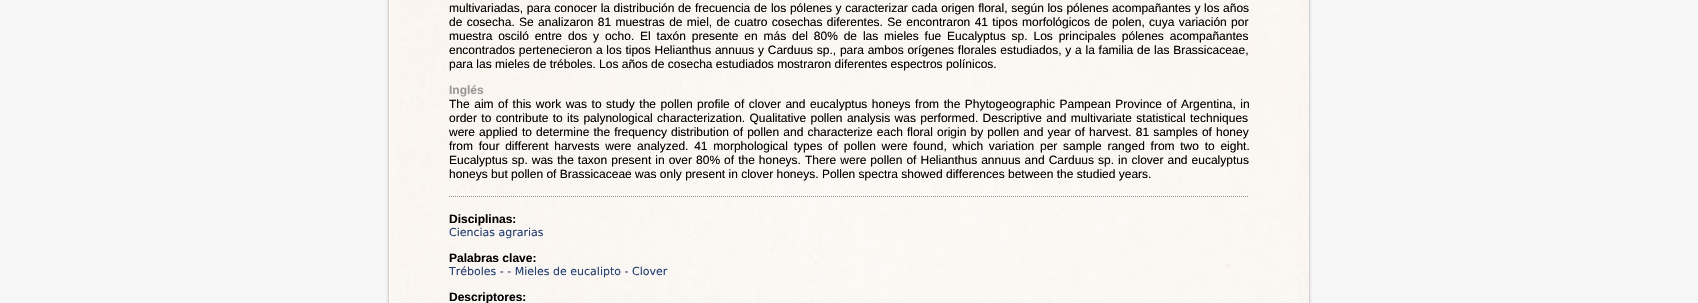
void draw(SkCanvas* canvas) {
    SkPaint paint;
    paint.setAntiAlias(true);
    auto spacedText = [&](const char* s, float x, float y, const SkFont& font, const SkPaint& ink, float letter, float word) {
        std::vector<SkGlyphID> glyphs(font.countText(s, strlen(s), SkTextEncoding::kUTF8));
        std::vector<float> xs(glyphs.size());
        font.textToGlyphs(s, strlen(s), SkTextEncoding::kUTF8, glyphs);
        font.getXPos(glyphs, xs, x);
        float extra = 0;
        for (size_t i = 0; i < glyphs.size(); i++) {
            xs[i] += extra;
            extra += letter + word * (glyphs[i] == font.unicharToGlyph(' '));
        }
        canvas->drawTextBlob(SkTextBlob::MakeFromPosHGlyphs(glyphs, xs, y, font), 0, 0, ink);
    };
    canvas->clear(0xFFF6F6F6);
    paint.setColor(0xFF999999);
    paint.setMaskFilter(SkMaskFilter::MakeBlur(kNormal_SkBlurStyle, 1.5f));
    canvas->drawRoundRect(SkRect::MakeXYWH(389, -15, 920, 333), 10, 10, paint);
    paint.setMaskFilter(nullptr);
    paint.setColor(0xFFFEF9F2);
    canvas->drawRect(SkRect::MakeXYWH(389, 0, 2, 303), paint);
    canvas->drawImageRect(SkImages::DeferredFromEncodedData(SkData::MakeFromFileName("img1.png")), SkRect::MakeXYWH(391, 0, 918, 303), SkSamplingOptions());
    SkFont font1(fontMgr->matchFamilyStyle("Liberation Sans", SkFontStyle::Normal()), 12);
    font1.setSubpixel(true);
    paint.setColor(0xFF000000);
    spacedText("multivariadas, para conocer la distribución de frecuencia de los pólenes y caracterizar cada origen floral, según los pólenes acompañantes y los años", 449, 12, font1, paint, 0, 0.3f);
    spacedText("de cosecha. Se analizaron 81 muestras de miel, de cuatro cosechas diferentes. Se encontraron 41 tipos morfológicos de polen, cuya variación por", 449, 26, font1, paint, 0, 1);
    spacedText("muestra osciló entre dos y ocho. El taxón presente en más del 80% de las mieles fue Eucalyptus sp. Los principales pólenes acompañantes", 449, 40, font1, paint, 0, 2.5f);
    spacedText("encontrados pertenecieron a los tipos Helianthus annuus y Carduus sp., para ambos orígenes florales estudiados, y a la familia de las Brassicaceae,", 449, 54, font1, paint, 0, 0.4f);
    canvas->drawString("para las mieles de tréboles. Los años de cosecha estudiados mostraron diferentes espectros polínicos.", 449, 68, font1, paint);
    SkFont font2(fontMgr->matchFamilyStyle("Liberation Sans", SkFontStyle::Bold()), 12);
    font2.setSubpixel(true);
    paint.setColor(0xFF999999);
    canvas->drawString("Inglés", 449, 94, font2, paint);
    paint.setColor(0xFF000000);
    spacedText("The aim of this work was to study the pollen profile of clover and eucalyptus honeys from the Phytogeographic Pampean Province of Argentina, in", 449, 108, font1, paint, 0, 1.2f);
    spacedText("order to contribute to its palynological characterization. Qualitative pollen analysis was performed. Descriptive and multivariate statistical techniques", 449, 122, font1, paint, 0, 1);
    spacedText("were applied to determine the frequency distribution of pollen and characterize each floral origin by pollen and year of harvest. 81 samples of honey", 449, 136, font1, paint, 0, 0.75f);
    spacedText("from four different harvests were analyzed. 41 morphological types of pollen were found, which variation per sample ranged from two to eight.", 449, 150, font1, paint, 0, 2.4f);
    spacedText("Eucalyptus sp. was the taxon present in over 80% of the honeys. There were pollen of Helianthus annuus and Carduus sp. in clover and eucalyptus", 449, 164, font1, paint, 0, 0.7f);
    canvas->drawString("honeys but pollen of Brassicaceae was only present in clover honeys. Pollen spectra showed differences between the studied years.", 449, 178, font1, paint);
    paint.setStyle(SkPaint::kStroke_Style);
    paint.setStrokeWidth(1);
    paint.setColor(0xFF8E8E8E);
    paint.setPathEffect(SkDashPathEffect::Make({{1, 1}}, 0));
    canvas->drawPath(SkPathBuilder().moveTo(449, 196.5f).lineTo(1249, 196.5f).detach(), paint);
    paint.setPathEffect(nullptr);
    paint.setStyle(SkPaint::kFill_Style);
    paint.setColor(0xFF000000);
    canvas->drawString("Disciplinas:", 449, 223, font2, paint);
    SkFont font3(fontMgr->matchFamilyStyle("DejaVu Sans", SkFontStyle::Normal()), 11);
    font3.setSubpixel(true);
    paint.setColor(0xFF243F71);
    canvas->drawString("Ciencias agrarias", 449, 236, font3, paint);
    paint.setColor(0xFF000000);
    canvas->drawString("Palabras clave:", 449, 262, font2, paint);
    paint.setColor(0xFF243F71);
    canvas->drawString("Tréboles - - Mieles de eucalipto - Clover", 449, 275, font3, paint);
    paint.setColor(0xFF000000);
    canvas->drawString("Descriptores:", 449, 301, font2, paint);
}
